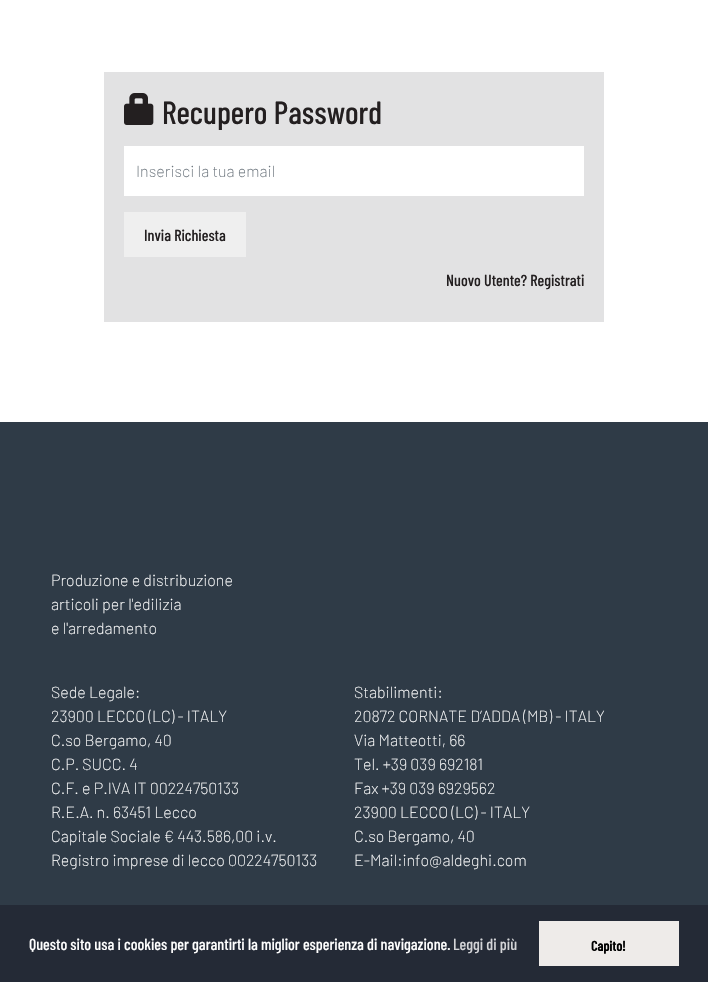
void draw(SkCanvas* canvas) {
    SkPaint paint;
    paint.setAntiAlias(true);
    canvas->clear(0xFFFFFFFF);
    paint.setColor(0xFFE2E2E3);
    canvas->drawRect(SkRect::MakeXYWH(104, 72, 500, 250), paint);
    canvas->drawImageRect(SkImages::DeferredFromEncodedData(SkData::MakeFromFileName("img1.png")), SkRect::MakeXYWH(124, 93, 30, 32), SkSamplingOptions());
    SkFont font1(fontMgr->matchFamilyStyle("Barlow Condensed", SkFontStyle(500, SkFontStyle::kNormal_Width, SkFontStyle::kUpright_Slant)), 32);
    font1.setSubpixel(true);
    paint.setColor(0xFF231F20);
    canvas->drawString("Recupero Password", 162, 124, font1, paint);
    paint.setColor(0xFFFFFFFF);
    canvas->drawRect(SkRect::MakeXYWH(124, 146, 460, 50), paint);
    SkFont font2(fontMgr->matchFamilyStyle("Barlow", SkFontStyle(200, SkFontStyle::kNormal_Width, SkFontStyle::kUpright_Slant)), 16);
    font2.setSubpixel(true);
    paint.setColor(0xFF6C757D);
    canvas->drawString("Inserisci la tua email", 136, 177, font2, paint);
    paint.setColor(0xFFEFEFEF);
    canvas->drawRect(SkRect::MakeXYWH(124, 212, 122, 45), paint);
    SkFont font3(fontMgr->matchFamilyStyle("Barlow Condensed", SkFontStyle(500, SkFontStyle::kNormal_Width, SkFontStyle::kUpright_Slant)), 16);
    font3.setSubpixel(true);
    paint.setColor(0xFF231F20);
    canvas->drawString("Invia Richiesta", 144, 241, font3, paint);
    canvas->drawString("Nuovo Utente? Registrati", 446, 286, font3, paint);
    paint.setColor(0xFF2F3B47);
    canvas->drawRect(SkRect::MakeXYWH(0, 422, 708, 483), paint);
    paint.setColor(0xFFFFFFFF);
    canvas->drawString("Produzione e distribuzione", 51, 586, font2, paint);
    canvas->drawString("articoli per l'edilizia", 51, 610, font2, paint);
    canvas->drawString("e l'arredamento", 51, 634, font2, paint);
    canvas->drawString("Sede Legale:", 51, 698, font2, paint);
    canvas->drawString("23900 LECCO (LC) - ITALY", 51, 722, font2, paint);
    canvas->drawString("C.so Bergamo, 40", 51, 746, font2, paint);
    canvas->drawString("C.P. SUCC. 4", 51, 770, font2, paint);
    canvas->drawString("C.F. e P.IVA IT 00224750133", 51, 794, font2, paint);
    canvas->drawString("R.E.A. n. 63451 Lecco", 51, 818, font2, paint);
    canvas->drawString("Capitale Sociale € 443.586,00 i.v.", 51, 842, font2, paint);
    canvas->drawString("Registro imprese di lecco 00224750133", 51, 866, font2, paint);
    canvas->drawString("Stabilimenti:", 354, 698, font2, paint);
    canvas->drawString("20872 CORNATE D’ADDA (MB) - ITALY", 354, 722, font2, paint);
    canvas->drawString("Via Matteotti, 66", 354, 746, font2, paint);
    canvas->drawString("Tel. +39 039 692181", 354, 770, font2, paint);
    canvas->drawString("Fax +39 039 6929562", 354, 794, font2, paint);
    canvas->drawString("23900 LECCO (LC) - ITALY", 354, 818, font2, paint);
    canvas->drawString("C.so Bergamo, 40", 354, 842, font2, paint);
    canvas->drawString("E-Mail:info@aldeghi.com", 354, 866, font2, paint);
    paint.setColor(0xFF242A36);
    canvas->drawRect(SkRect::MakeXYWH(0, 905, 708, 77), paint);
    paint.setColor(0xFFFFFFFF);
    canvas->drawString("Questo sito usa i cookies per garantirti la miglior esperienza di navigazione.", 29, 950, font3, paint);
    paint.setColor(0xFFD3D4D7);
    canvas->drawString("Leggi di più", 453, 950, font3, paint);
    paint.setColor(0xFFEEEBE9);
    canvas->drawRect(SkRect::MakeXYWH(539, 921, 140, 45), paint);
    SkFont font4(fontMgr->matchFamilyStyle("Barlow Condensed", SkFontStyle::Bold()), 14);
    font4.setSubpixel(true);
    paint.setColor(0xFF000000);
    canvas->drawString("Capito!", 591, 951, font4, paint);
}
